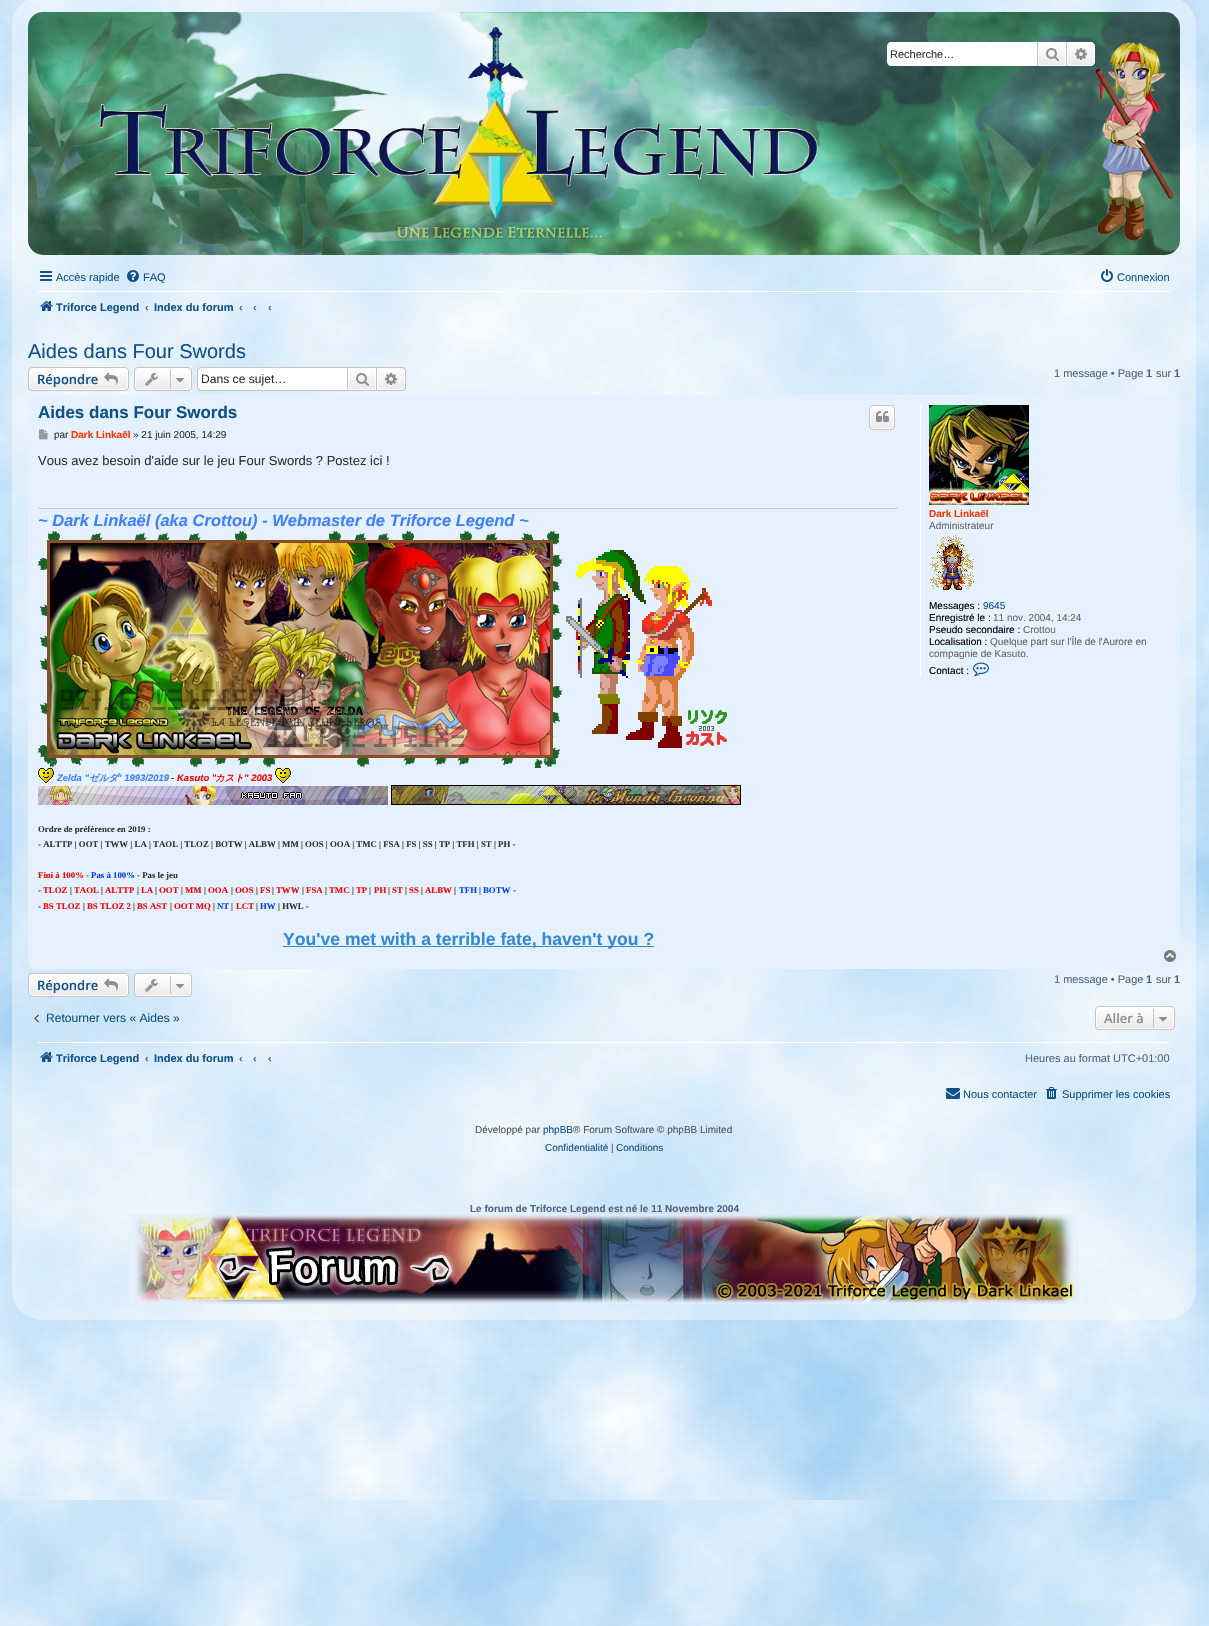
void draw(SkCanvas* canvas) {
    SkPaint paint;
    paint.setAntiAlias(true);
    canvas->clear(0xFFFFFFFF);
    canvas->drawImageRect(SkImages::DeferredFromEncodedData(SkData::MakeFromFileName("img1.png")), SkRect::MakeXYWH(0, 1332, 1209, 294), SkSamplingOptions());
    canvas->drawImageRect(SkImages::DeferredFromEncodedData(SkData::MakeFromFileName("img2.png")), SkRect::MakeXYWH(0, 0, 1209, 1332), SkSamplingOptions());
    canvas->drawImageRect(SkImages::DeferredFromEncodedData(SkData::MakeFromFileName("img3.png")), SkRect::MakeXYWH(28, 12, 1152, 243), SkSamplingOptions());
    canvas->drawImageRect(SkImages::DeferredFromEncodedData(SkData::MakeFromFileName("img4.png")), SkRect::MakeXYWH(99, 27, 719, 212), SkSamplingOptions());
    paint.setColor(0xFFFFFFFF);
    canvas->drawPath(SkPathBuilder().moveTo(891, 42).lineTo(1037, 42).lineTo(1037, 66).lineTo(891, 66).cubicTo(889, 66, 887, 64, 887, 62).lineTo(887, 46).cubicTo(887, 44, 889, 42, 891, 42).close().detach(), paint);
    SkFont font1(fontMgr->matchFamilyStyle("Liberation Sans", SkFontStyle::Normal()), 11);
    font1.setSubpixel(true);
    paint.setColor(0xFF333333);
    canvas->drawString("Recherche…", 890, 58, font1, paint);
    {
        const SkColor colors[] = {0xFFFFFFFF, 0xFFE9E9E9};
        const float stops[] = {0, 1};
        const SkPoint ends[] = {{1052, 42}, {1052, 66}};
        paint.setShader(SkGradientShader::MakeLinear(ends, colors, stops, 2, SkTileMode::kClamp));
        paint.setAlpha(255);
    }
    canvas->drawRect(SkRect::MakeXYWH(1039, 43, 26, 22), paint);
    paint.setStyle(SkPaint::kStroke_Style);
    paint.setStrokeWidth(1);
    paint.setShader(nullptr);
    paint.setColor(0xFFFFFFFF);
    canvas->drawRect(SkRect::MakeXYWH(1038.5f, 42.5f, 27, 23), paint);
    paint.setStyle(SkPaint::kFill_Style);
    paint.setColor(0xFFC7C3BF);
    canvas->drawRect(SkRect::MakeXYWH(1066, 42, 1, 24), paint);
    canvas->drawRect(SkRect::MakeXYWH(1037, 42, 1, 24), paint);
    canvas->drawImageRect(SkImages::DeferredFromEncodedData(SkData::MakeFromFileName("img5.png")), SkRect::MakeXYWH(1046, 48, 13, 13), SkSamplingOptions());
    {
        const SkColor colors[] = {0xFFFFFFFF, 0xFFE9E9E9};
        const float stops[] = {0, 1};
        const SkPoint ends[] = {{1081, 42}, {1081, 66}};
        paint.setShader(SkGradientShader::MakeLinear(ends, colors, stops, 2, SkTileMode::kClamp));
        paint.setAlpha(255);
    }
    canvas->drawPath(SkPathBuilder().moveTo(1067.5f, 42.5f).lineTo(1091, 42.5f).cubicTo(1093, 42.5f, 1094.5f, 44, 1094.5f, 46).lineTo(1094.5f, 62).cubicTo(1094.5f, 64, 1093, 65.5f, 1091, 65.5f).lineTo(1067.5f, 65.5f).close().detach(), paint);
    paint.setStyle(SkPaint::kStroke_Style);
    paint.setShader(nullptr);
    paint.setColor(0xFFFFFFFF);
    canvas->drawPath(SkPathBuilder().moveTo(1067.5f, 42.5f).lineTo(1091, 42.5f).cubicTo(1093, 42.5f, 1094.5f, 44, 1094.5f, 46).lineTo(1094.5f, 62).cubicTo(1094.5f, 64, 1093, 65.5f, 1091, 65.5f).lineTo(1067.5f, 65.5f).close().detach(), paint);
    canvas->drawImageRect(SkImages::DeferredFromEncodedData(SkData::MakeFromFileName("img6.png")), SkRect::MakeXYWH(1075, 48, 12, 12), SkSamplingOptions());
    canvas->drawImageRect(SkImages::DeferredFromEncodedData(SkData::MakeFromFileName("img7.png")), SkRect::MakeXYWH(1095, 42, 80, 200), SkSamplingOptions());
    canvas->drawImageRect(SkImages::DeferredFromEncodedData(SkData::MakeFromFileName("img8.png")), SkRect::MakeXYWH(40, 271, 12, 10), SkSamplingOptions());
    paint.setStyle(SkPaint::kFill_Style);
    paint.setColor(0xFF105289);
    canvas->drawString("Accès rapide", 56, 281, font1, paint);
    canvas->drawImageRect(SkImages::DeferredFromEncodedData(SkData::MakeFromFileName("img9.png")), SkRect::MakeXYWH(127, 270, 12, 12), SkSamplingOptions());
    canvas->drawString("FAQ", 143, 281, font1, paint);
    canvas->drawImageRect(SkImages::DeferredFromEncodedData(SkData::MakeFromFileName("img10.png")), SkRect::MakeXYWH(1101, 269, 12, 13), SkSamplingOptions());
    canvas->drawString("Connexion", 1117, 281, font1, paint);
    paint.setColor(0xFFFFFFFF);
    canvas->drawRect(SkRect::MakeXYWH(38, 291, 1132, 1), paint);
    canvas->drawImageRect(SkImages::DeferredFromEncodedData(SkData::MakeFromFileName("img11.png")), SkRect::MakeXYWH(40, 301, 13, 10), SkSamplingOptions());
    SkFont font2(fontMgr->matchFamilyStyle("Liberation Sans", SkFontStyle::Bold()), 11);
    font2.setSubpixel(true);
    paint.setColor(0xFF105289);
    canvas->drawString("Triforce Legend", 56, 311, font2, paint);
    paint.setColor(0xFF536482);
    canvas->drawString("‹", 145, 311, font2, paint);
    paint.setColor(0xFF105289);
    canvas->drawString("Index du forum", 154, 311, font2, paint);
    paint.setColor(0xFF536482);
    canvas->drawString("‹", 239, 311, font2, paint);
    canvas->drawString("‹", 253, 311, font2, paint);
    canvas->drawString("‹", 268, 311, font2, paint);
    SkFont font3(fontMgr->matchFamilyStyle("Liberation Sans", SkFontStyle::Normal()), 20);
    font3.setSubpixel(true);
    paint.setColor(0xFF105289);
    canvas->drawString("Aides dans Four Swords", 28, 358, font3, paint);
    canvas->save();
    canvas->clipPath(SkPathBuilder().moveTo(32, 367).lineTo(125, 367).cubicTo(127, 367, 129, 369, 129, 371).lineTo(129, 387).cubicTo(129, 389, 127, 391, 125, 391).lineTo(32, 391).cubicTo(30, 391, 28, 389, 28, 387).lineTo(28, 371).cubicTo(28, 369, 30, 367, 32, 367).close().detach(), true);
    {
        const SkColor colors[] = {0xFFFFFFFF, 0xFFE9E9E9};
        const float stops[] = {0, 1};
        const SkPoint ends[] = {{79, 368}, {79, 390}};
        paint.setShader(SkGradientShader::MakeLinear(ends, colors, stops, 2, SkTileMode::kClamp));
        paint.setAlpha(255);
    }
    canvas->drawRect(SkRect::MakeXYWH(28, 368, 101, 22), paint);
    canvas->restore();
    paint.setStyle(SkPaint::kStroke_Style);
    paint.setShader(nullptr);
    paint.setColor(0xFFFFFFFF);
    canvas->drawRoundRect(SkRect::MakeXYWH(29.5f, 368.5f, 98, 21), 2.5f, 2.5f, paint);
    paint.setColor(0xFFC7C3BF);
    canvas->drawRoundRect(SkRect::MakeXYWH(28.5f, 367.5f, 100, 23), 3.5f, 3.5f, paint);
    SkFont font4(fontMgr->matchFamilyStyle("Open Sans", SkFontStyle(600, SkFontStyle::kNormal_Width, SkFontStyle::kUpright_Slant)), 13);
    font4.setSubpixel(true);
    paint.setStyle(SkPaint::kFill_Style);
    paint.setColor(0xFF105289);
    canvas->drawString("Répondre", 37, 384, font4, paint);
    canvas->drawImageRect(SkImages::DeferredFromEncodedData(SkData::MakeFromFileName("img12.png")), SkRect::MakeXYWH(104, 372, 14, 13), SkSamplingOptions());
    canvas->save();
    canvas->clipPath(SkPathBuilder().moveTo(138, 367).lineTo(188, 367).cubicTo(190, 367, 192, 369, 192, 371).lineTo(192, 387).cubicTo(192, 389, 190, 391, 188, 391).lineTo(138, 391).cubicTo(136, 391, 134, 389, 134, 387).lineTo(134, 371).cubicTo(134, 369, 136, 367, 138, 367).close().detach(), true);
    {
        const SkColor colors[] = {0xFFFFFFFF, 0xFFE9E9E9};
        const float stops[] = {0, 1};
        const SkPoint ends[] = {{163, 368}, {163, 390}};
        paint.setShader(SkGradientShader::MakeLinear(ends, colors, stops, 2, SkTileMode::kClamp));
        paint.setAlpha(255);
    }
    canvas->drawRect(SkRect::MakeXYWH(134, 368, 58, 22), paint);
    canvas->restore();
    paint.setStyle(SkPaint::kStroke_Style);
    paint.setShader(nullptr);
    paint.setColor(0xFFFFFFFF);
    canvas->drawRoundRect(SkRect::MakeXYWH(135.5f, 368.5f, 55, 21), 2.5f, 2.5f, paint);
    paint.setColor(0xFFC7C3BF);
    canvas->drawRoundRect(SkRect::MakeXYWH(134.5f, 367.5f, 57, 23), 3.5f, 3.5f, paint);
    canvas->drawImageRect(SkImages::DeferredFromEncodedData(SkData::MakeFromFileName("img13.png")), SkRect::MakeXYWH(145, 373, 13, 13), SkSamplingOptions());
    paint.setStyle(SkPaint::kFill_Style);
    canvas->drawRect(SkRect::MakeXYWH(170, 370, 1, 18), paint);
    canvas->drawImageRect(SkImages::DeferredFromEncodedData(SkData::MakeFromFileName("img14.png")), SkRect::MakeXYWH(176, 378, 8, 5), SkSamplingOptions());
    paint.setColor(0xFFFFFFFF);
    canvas->drawPath(SkPathBuilder().moveTo(201, 368).lineTo(347, 368).lineTo(347, 390).lineTo(201, 390).cubicTo(199.5f, 390, 198, 388.5f, 198, 387).lineTo(198, 371).cubicTo(198, 369.5f, 199.5f, 368, 201, 368).close().detach(), paint);
    paint.setColor(0xFFC7C3BF);
    canvas->drawPath(SkPathBuilder(SkPathFillType::kEvenOdd).moveTo(201, 367).lineTo(347, 367).lineTo(347, 391).lineTo(201, 391).cubicTo(199, 391, 197, 389, 197, 387).lineTo(197, 371).cubicTo(197, 369, 199, 367, 201, 367).close().moveTo(201, 368).lineTo(347, 368).lineTo(347, 390).lineTo(201, 390).cubicTo(199, 390, 198, 389, 198, 387).lineTo(198, 371).cubicTo(198, 369, 199, 368, 201, 368).close().detach(), paint);
    SkFont font5(fontMgr->matchFamilyStyle("Liberation Sans", SkFontStyle::Normal()), 12.1f);
    font5.setSubpixel(true);
    paint.setColor(0xFF333333);
    canvas->drawString("Dans ce sujet…", 201, 383, font5, paint);
    {
        const SkColor colors[] = {0xFFFFFFFF, 0xFFE9E9E9};
        const float stops[] = {0, 1};
        const SkPoint ends[] = {{362, 368}, {362, 390}};
        paint.setShader(SkGradientShader::MakeLinear(ends, colors, stops, 2, SkTileMode::kClamp));
        paint.setAlpha(255);
    }
    canvas->drawRect(SkRect::MakeXYWH(349, 369, 26, 20), paint);
    paint.setStyle(SkPaint::kStroke_Style);
    paint.setShader(nullptr);
    paint.setColor(0xFFFFFFFF);
    canvas->drawRect(SkRect::MakeXYWH(348.5f, 368.5f, 27, 21), paint);
    paint.setColor(0xFFC7C3BF);
    canvas->drawRect(SkRect::MakeXYWH(347.5f, 367.5f, 29, 23), paint);
    canvas->drawImageRect(SkImages::DeferredFromEncodedData(SkData::MakeFromFileName("img15.png")), SkRect::MakeXYWH(356, 373, 13, 13), SkSamplingOptions());
    paint.setStyle(SkPaint::kFill_Style);
    {
        const SkColor colors[] = {0xFFFFFFFF, 0xFFE9E9E9};
        const float stops[] = {0, 1};
        const SkPoint ends[] = {{391, 368}, {391, 390}};
        paint.setShader(SkGradientShader::MakeLinear(ends, colors, stops, 2, SkTileMode::kClamp));
        paint.setAlpha(255);
    }
    canvas->drawPath(SkPathBuilder().moveTo(377.5f, 368.5f).lineTo(402, 368.5f).cubicTo(403.5f, 368.5f, 404.5f, 369.5f, 404.5f, 371).lineTo(404.5f, 387).cubicTo(404.5f, 388.5f, 403.5f, 389.5f, 402, 389.5f).lineTo(377.5f, 389.5f).close().detach(), paint);
    paint.setStyle(SkPaint::kStroke_Style);
    paint.setShader(nullptr);
    paint.setColor(0xFFFFFFFF);
    canvas->drawPath(SkPathBuilder().moveTo(377.5f, 368.5f).lineTo(402, 368.5f).cubicTo(403.5f, 368.5f, 404.5f, 369.5f, 404.5f, 371).lineTo(404.5f, 387).cubicTo(404.5f, 388.5f, 403.5f, 389.5f, 402, 389.5f).lineTo(377.5f, 389.5f).close().detach(), paint);
    paint.setStyle(SkPaint::kFill_Style);
    paint.setColor(0xFFC7C3BF);
    canvas->drawPath(SkPathBuilder(SkPathFillType::kEvenOdd).moveTo(377, 367).lineTo(402, 367).cubicTo(404, 367, 406, 369, 406, 371).lineTo(406, 387).cubicTo(406, 389, 404, 391, 402, 391).lineTo(377, 391).close().moveTo(377, 368).lineTo(402, 368).cubicTo(403.5f, 368, 405, 369.5f, 405, 371).lineTo(405, 387).cubicTo(405, 388.5f, 403.5f, 390, 402, 390).lineTo(377, 390).close().detach(), paint);
    canvas->drawImageRect(SkImages::DeferredFromEncodedData(SkData::MakeFromFileName("img16.png")), SkRect::MakeXYWH(385, 373, 12, 12), SkSamplingOptions());
    paint.setColor(0xFF536482);
    canvas->drawString("1 message • Page", 1054, 377, font1, paint);
    canvas->drawString("1", 1146, 377, font2, paint);
    canvas->drawString("sur", 1156, 377, font1, paint);
    canvas->drawString("1", 1174, 377, font2, paint);
    paint.setColor(0xFFE5F1FF);
    canvas->drawRoundRect(SkRect::MakeXYWH(28, 395, 1152, 574), 7, 7, paint);
    SkFont font6(fontMgr->matchFamilyStyle("Liberation Sans", SkFontStyle::Bold()), 17);
    font6.setSubpixel(true);
    paint.setColor(0xFF105289);
    canvas->drawString("Aides dans Four Swords", 38, 418, font6, paint);
    canvas->save();
    canvas->clipPath(SkPathBuilder().moveTo(873, 405).lineTo(891, 405).cubicTo(893, 405, 895, 407, 895, 409).lineTo(895, 426).cubicTo(895, 428, 893, 430, 891, 430).lineTo(873, 430).cubicTo(871, 430, 869, 428, 869, 426).lineTo(869, 409).cubicTo(869, 407, 871, 405, 873, 405).close().detach(), true);
    {
        const SkColor colors[] = {0xFFFFFFFF, 0xFFE9E9E9};
        const float stops[] = {0, 1};
        const SkPoint ends[] = {{882, 406}, {882, 429}};
        paint.setShader(SkGradientShader::MakeLinear(ends, colors, stops, 2, SkTileMode::kClamp));
        paint.setAlpha(255);
    }
    canvas->drawRect(SkRect::MakeXYWH(869, 406, 26, 23), paint);
    canvas->restore();
    paint.setStyle(SkPaint::kStroke_Style);
    paint.setShader(nullptr);
    paint.setColor(0xFFFFFFFF);
    canvas->drawRoundRect(SkRect::MakeXYWH(870.5f, 406.5f, 23, 22), 2.5f, 2.5f, paint);
    paint.setColor(0xFFC7C3BF);
    canvas->drawRoundRect(SkRect::MakeXYWH(869.5f, 405.5f, 25, 24), 3.5f, 3.5f, paint);
    canvas->drawImageRect(SkImages::DeferredFromEncodedData(SkData::MakeFromFileName("img17.png")), SkRect::MakeXYWH(876, 411, 13, 11), SkSamplingOptions());
    canvas->drawImageRect(SkImages::DeferredFromEncodedData(SkData::MakeFromFileName("img18.png")), SkRect::MakeXYWH(39, 429, 9, 11), SkSamplingOptions());
    SkFont font7(fontMgr->matchFamilyStyle("Liberation Sans", SkFontStyle::Normal()), 10);
    font7.setSubpixel(true);
    paint.setStyle(SkPaint::kFill_Style);
    paint.setColor(0xFF333333);
    canvas->drawString("par", 54, 438, font7, paint);
    SkFont font8(fontMgr->matchFamilyStyle("Liberation Sans", SkFontStyle::Bold()), 10);
    font8.setSubpixel(true);
    paint.setColor(0xFFFF3300);
    canvas->drawString("Dark Linkaël", 71, 438, font8, paint);
    paint.setColor(0xFF333333);
    canvas->drawString("» 21 juin 2005, 14:29", 133, 438, font7, paint);
    SkFont font9(fontMgr->matchFamilyStyle("Liberation Sans", SkFontStyle::Normal()), 13);
    font9.setSubpixel(true);
    canvas->drawString("Vous avez besoin d'aide sur le jeu Four Swords ? Postez ici !", 38, 465, font9, paint);
    paint.setColor(0xFFCCCCCC);
    canvas->drawRect(SkRect::MakeXYWH(38, 508, 860, 1), paint);
    SkFont font10(fontMgr->matchFamilyStyle("Liberation Sans", SkFontStyle::BoldItalic()), 16.5f);
    font10.setSubpixel(true);
    paint.setColor(0xFF4080FF);
    canvas->drawString("~ Dark Linkaël (aka Crottou) - Webmaster de Triforce Legend ~", 38, 526, font10, paint);
    canvas->drawImageRect(SkImages::DeferredFromEncodedData(SkData::MakeFromFileName("img19.png")), SkRect::MakeXYWH(38, 531, 524, 237), SkSamplingOptions());
    canvas->drawImageRect(SkImages::DeferredFromEncodedData(SkData::MakeFromFileName("img20.png")), SkRect::MakeXYWH(566, 550, 161, 198), SkSamplingOptions());
    canvas->drawImageRect(SkImages::DeferredFromEncodedData(SkData::MakeFromFileName("img21.png")), SkRect::MakeXYWH(38, 768, 16, 15), SkSamplingOptions());
    SkFont font11(fontMgr->matchFamilyStyle("Liberation Sans", SkFontStyle::BoldItalic()), 9.5f);
    font11.setSubpixel(true);
    canvas->drawString("Zelda \"", 57, 781, font11, paint);
    SkFont font12(fontMgr->matchFamilyStyle("WenQuanYi Zen Hei", SkFontStyle::BoldItalic()), 9.5f);
    font12.setSubpixel(true);
    canvas->drawString("ゼルダ", 89, 781, font12, paint);
    canvas->drawString("\" 1993/2019", 117, 781, font11, paint);
    paint.setColor(0xFF333333);
    canvas->drawString("-", 171, 781, font11, paint);
    paint.setColor(0xFFFF0000);
    canvas->drawString("Kasuto \"", 177, 781, font11, paint);
    canvas->drawString("カスト", 215, 781, font12, paint);
    canvas->drawString("\" 2003", 244, 781, font11, paint);
    canvas->drawImageRect(SkImages::DeferredFromEncodedData(SkData::MakeFromFileName("img21.png")), SkRect::MakeXYWH(275, 768, 16, 15), SkSamplingOptions());
    canvas->drawImageRect(SkImages::DeferredFromEncodedData(SkData::MakeFromFileName("img22.png")), SkRect::MakeXYWH(38, 786, 350, 19), SkSamplingOptions());
    canvas->drawImageRect(SkImages::DeferredFromEncodedData(SkData::MakeFromFileName("img23.png")), SkRect::MakeXYWH(391, 785, 350, 20), SkSamplingOptions());
    SkFont font13(fontMgr->matchFamilyStyle("Liberation Serif", SkFontStyle::Bold()), 8.8f);
    font13.setSubpixel(true);
    paint.setColor(0xFF333333);
    canvas->drawString("Ordre de préférence en 2019 :", 38, 832, font13, paint);
    canvas->drawString("- ALTTP | OOT | TWW | LA | TAOL | TLOZ | BOTW | ALBW | MM | OOS | OOA | TMC | FSA | FS | SS | TP | TFH | ST | PH -", 38, 847, font13, paint);
    paint.setColor(0xFFFF0000);
    canvas->drawString("Fini à 100%", 38, 878, font13, paint);
    paint.setColor(0xFF333333);
    canvas->drawString("-", 86, 878, font13, paint);
    paint.setColor(0xFF0040FF);
    canvas->drawString("Pas à 100%", 91, 878, font13, paint);
    paint.setColor(0xFF333333);
    canvas->drawString("- Pas le jeu", 137, 878, font13, paint);
    canvas->drawString("-", 38, 893, font13, paint);
    paint.setColor(0xFFFF0000);
    canvas->drawString("TLOZ", 43, 893, font13, paint);
    paint.setColor(0xFF333333);
    canvas->drawString("|", 70, 893, font13, paint);
    paint.setColor(0xFFFF0000);
    canvas->drawString("TAOL", 74, 893, font13, paint);
    paint.setColor(0xFF333333);
    canvas->drawString("|", 101, 893, font13, paint);
    paint.setColor(0xFFFF0000);
    canvas->drawString("ALTTP", 105, 893, font13, paint);
    paint.setColor(0xFF333333);
    canvas->drawString("|", 137, 893, font13, paint);
    paint.setColor(0xFFFF0000);
    canvas->drawString("LA", 141, 893, font13, paint);
    paint.setColor(0xFF333333);
    canvas->drawString("|", 155, 893, font13, paint);
    paint.setColor(0xFFFF0000);
    canvas->drawString("OOT", 159, 893, font13, paint);
    paint.setColor(0xFF333333);
    canvas->drawString("|", 181, 893, font13, paint);
    paint.setColor(0xFFFF0000);
    canvas->drawString("MM", 185, 893, font13, paint);
    paint.setColor(0xFF333333);
    canvas->drawString("|", 204, 893, font13, paint);
    paint.setColor(0xFFFF0000);
    canvas->drawString("OOA", 208, 893, font13, paint);
    paint.setColor(0xFF333333);
    canvas->drawString("|", 231, 893, font13, paint);
    paint.setColor(0xFFFF0000);
    canvas->drawString("OOS", 235, 893, font13, paint);
    paint.setColor(0xFF333333);
    canvas->drawString("|", 256, 893, font13, paint);
    paint.setColor(0xFFFF0000);
    canvas->drawString("FS", 260, 893, font13, paint);
    paint.setColor(0xFF333333);
    canvas->drawString("|", 272, 893, font13, paint);
    paint.setColor(0xFFFF0000);
    canvas->drawString("TWW", 276, 893, font13, paint);
    paint.setColor(0xFF333333);
    canvas->drawString("|", 302, 893, font13, paint);
    paint.setColor(0xFFFF0000);
    canvas->drawString("FSA", 306, 893, font13, paint);
    paint.setColor(0xFF333333);
    canvas->drawString("|", 325, 893, font13, paint);
    paint.setColor(0xFFFF0000);
    canvas->drawString("TMC", 329, 893, font13, paint);
    paint.setColor(0xFF333333);
    canvas->drawString("|", 352, 893, font13, paint);
    paint.setColor(0xFFFF0000);
    canvas->drawString("TP", 356, 893, font13, paint);
    paint.setColor(0xFF333333);
    canvas->drawString("|", 369, 893, font13, paint);
    paint.setColor(0xFFFF0000);
    canvas->drawString("PH", 374, 893, font13, paint);
    paint.setColor(0xFF333333);
    canvas->drawString("|", 388, 893, font13, paint);
    paint.setColor(0xFFFF0000);
    canvas->drawString("ST", 392, 893, font13, paint);
    paint.setColor(0xFF333333);
    canvas->drawString("|", 405, 893, font13, paint);
    paint.setColor(0xFFFF0000);
    canvas->drawString("SS", 409, 893, font13, paint);
    paint.setColor(0xFF333333);
    canvas->drawString("|", 421, 893, font13, paint);
    paint.setColor(0xFFFF0000);
    canvas->drawString("ALBW", 425, 893, font13, paint);
    paint.setColor(0xFF333333);
    canvas->drawString("|", 454, 893, font13, paint);
    paint.setColor(0xFF0040FF);
    canvas->drawString("TFH", 459, 893, font13, paint);
    paint.setColor(0xFF333333);
    canvas->drawString("|", 479, 893, font13, paint);
    paint.setColor(0xFF0040FF);
    canvas->drawString("BOTW", 483, 893, font13, paint);
    paint.setColor(0xFF333333);
    canvas->drawString("-", 513, 893, font13, paint);
    canvas->drawString("-", 38, 909, font13, paint);
    paint.setColor(0xFFFF0000);
    canvas->drawString("BS TLOZ", 43, 909, font13, paint);
    paint.setColor(0xFF333333);
    canvas->drawString("|", 83, 909, font13, paint);
    paint.setColor(0xFFFF0000);
    canvas->drawString("BS TLOZ 2", 87, 909, font13, paint);
    paint.setColor(0xFF333333);
    canvas->drawString("|", 133, 909, font13, paint);
    paint.setColor(0xFFFF0000);
    canvas->drawString("BS AST", 137, 909, font13, paint);
    paint.setColor(0xFF333333);
    canvas->drawString("|", 170, 909, font13, paint);
    paint.setColor(0xFFFF0000);
    canvas->drawString("OOT MQ", 174, 909, font13, paint);
    paint.setColor(0xFF333333);
    canvas->drawString("|", 213, 909, font13, paint);
    paint.setColor(0xFF0040FF);
    canvas->drawString("NT", 217, 909, font13, paint);
    paint.setColor(0xFF333333);
    canvas->drawString("|", 231, 909, font13, paint);
    paint.setColor(0xFFFF0000);
    canvas->drawString("LCT", 236, 909, font13, paint);
    paint.setColor(0xFF333333);
    canvas->drawString("|", 256, 909, font13, paint);
    paint.setColor(0xFF0040FF);
    canvas->drawString("HW", 260, 909, font13, paint);
    paint.setColor(0xFF333333);
    canvas->drawString("| HWL -", 278, 909, font13, paint);
    paint.setColor(0xFF368AD2);
    canvas->drawRect(SkRect::MakeXYWH(283, 946, 371, 1), paint);
    SkFont font14(fontMgr->matchFamilyStyle("Liberation Sans", SkFontStyle::Bold()), 17.6f);
    font14.setSubpixel(true);
    canvas->drawString("You've met with a terrible fate, haven't you ?", 283, 945, font14, paint);
    paint.setColor(0xFFFFFFFF);
    canvas->drawRect(SkRect::MakeXYWH(920, 405, 1, 272), paint);
    canvas->drawImageRect(SkImages::DeferredFromEncodedData(SkData::MakeFromFileName("img24.png")), SkRect::MakeXYWH(929, 405, 100, 100), SkSamplingOptions());
    paint.setColor(0xFFFF3300);
    canvas->drawString("Dark Linkaël", 929, 517, font8, paint);
    paint.setColor(0xFF666666);
    canvas->drawString("Administrateur", 929, 529, font7, paint);
    canvas->drawImageRect(SkImages::DeferredFromEncodedData(SkData::MakeFromFileName("img25.png")), SkRect::MakeXYWH(930, 535, 44, 55), SkSamplingOptions());
    paint.setColor(0xFF000000);
    canvas->drawString("Messages :", 929, 609, font7, paint);
    paint.setColor(0xFF105289);
    canvas->drawString("9645", 983, 609, font7, paint);
    paint.setColor(0xFF000000);
    canvas->drawString("Enregistré le :", 929, 621, font7, paint);
    paint.setColor(0xFF666666);
    canvas->drawString("11 nov. 2004, 14:24", 993, 621, font7, paint);
    paint.setColor(0xFF000000);
    canvas->drawString("Pseudo secondaire :", 929, 633, font7, paint);
    paint.setColor(0xFF666666);
    canvas->drawString("Crottou", 1023, 633, font7, paint);
    paint.setColor(0xFF000000);
    canvas->drawString("Localisation :", 929, 645, font7, paint);
    paint.setColor(0xFF666666);
    canvas->drawString("Quelque part sur l'Île de l'Aurore en", 990, 645, font7, paint);
    canvas->drawString("compagnie de Kasuto.", 929, 657, font7, paint);
    paint.setColor(0xFF000000);
    canvas->drawString("Contact :", 929, 674, font7, paint);
    canvas->drawImageRect(SkImages::DeferredFromEncodedData(SkData::MakeFromFileName("img26.png")), SkRect::MakeXYWH(973, 662, 16, 15), SkSamplingOptions());
    canvas->drawImageRect(SkImages::DeferredFromEncodedData(SkData::MakeFromFileName("img27.png")), SkRect::MakeXYWH(1164, 950, 12, 12), SkSamplingOptions());
    canvas->save();
    canvas->clipPath(SkPathBuilder().moveTo(32, 973).lineTo(125, 973).cubicTo(127, 973, 129, 975, 129, 977).lineTo(129, 993).cubicTo(129, 995, 127, 997, 125, 997).lineTo(32, 997).cubicTo(30, 997, 28, 995, 28, 993).lineTo(28, 977).cubicTo(28, 975, 30, 973, 32, 973).close().detach(), true);
    {
        const SkColor colors[] = {0xFFFFFFFF, 0xFFE9E9E9};
        const float stops[] = {0, 1};
        const SkPoint ends[] = {{79, 974}, {79, 996}};
        paint.setShader(SkGradientShader::MakeLinear(ends, colors, stops, 2, SkTileMode::kClamp));
        paint.setAlpha(255);
    }
    canvas->drawRect(SkRect::MakeXYWH(28, 974, 101, 22), paint);
    canvas->restore();
    paint.setStyle(SkPaint::kStroke_Style);
    paint.setShader(nullptr);
    paint.setColor(0xFFFFFFFF);
    canvas->drawRoundRect(SkRect::MakeXYWH(29.5f, 974.5f, 98, 21), 2.5f, 2.5f, paint);
    paint.setColor(0xFFC7C3BF);
    canvas->drawRoundRect(SkRect::MakeXYWH(28.5f, 973.5f, 100, 23), 3.5f, 3.5f, paint);
    paint.setStyle(SkPaint::kFill_Style);
    paint.setColor(0xFF105289);
    canvas->drawString("Répondre", 37, 990, font4, paint);
    canvas->drawImageRect(SkImages::DeferredFromEncodedData(SkData::MakeFromFileName("img12.png")), SkRect::MakeXYWH(104, 978, 14, 13), SkSamplingOptions());
    canvas->save();
    canvas->clipPath(SkPathBuilder().moveTo(138, 973).lineTo(188, 973).cubicTo(190, 973, 192, 975, 192, 977).lineTo(192, 993).cubicTo(192, 995, 190, 997, 188, 997).lineTo(138, 997).cubicTo(136, 997, 134, 995, 134, 993).lineTo(134, 977).cubicTo(134, 975, 136, 973, 138, 973).close().detach(), true);
    {
        const SkColor colors[] = {0xFFFFFFFF, 0xFFE9E9E9};
        const float stops[] = {0, 1};
        const SkPoint ends[] = {{163, 974}, {163, 996}};
        paint.setShader(SkGradientShader::MakeLinear(ends, colors, stops, 2, SkTileMode::kClamp));
        paint.setAlpha(255);
    }
    canvas->drawRect(SkRect::MakeXYWH(134, 974, 58, 22), paint);
    canvas->restore();
    paint.setStyle(SkPaint::kStroke_Style);
    paint.setShader(nullptr);
    paint.setColor(0xFFFFFFFF);
    canvas->drawRoundRect(SkRect::MakeXYWH(135.5f, 974.5f, 55, 21), 2.5f, 2.5f, paint);
    paint.setColor(0xFFC7C3BF);
    canvas->drawRoundRect(SkRect::MakeXYWH(134.5f, 973.5f, 57, 23), 3.5f, 3.5f, paint);
    canvas->drawImageRect(SkImages::DeferredFromEncodedData(SkData::MakeFromFileName("img13.png")), SkRect::MakeXYWH(145, 979, 13, 13), SkSamplingOptions());
    paint.setStyle(SkPaint::kFill_Style);
    canvas->drawRect(SkRect::MakeXYWH(170, 976, 1, 18), paint);
    canvas->drawImageRect(SkImages::DeferredFromEncodedData(SkData::MakeFromFileName("img14.png")), SkRect::MakeXYWH(176, 984, 8, 5), SkSamplingOptions());
    paint.setColor(0xFF536482);
    canvas->drawString("1 message • Page", 1054, 983, font1, paint);
    canvas->drawString("1", 1146, 983, font2, paint);
    canvas->drawString("sur", 1156, 983, font1, paint);
    canvas->drawString("1", 1174, 983, font2, paint);
    canvas->drawImageRect(SkImages::DeferredFromEncodedData(SkData::MakeFromFileName("img28.png")), SkRect::MakeXYWH(34, 1014, 5, 9), SkSamplingOptions());
    paint.setColor(0xFF105289);
    canvas->drawString("Retourner vers « Aides »", 46, 1022, font5, paint);
    canvas->save();
    canvas->clipPath(SkPathBuilder().moveTo(1099, 1006).lineTo(1171, 1006).cubicTo(1173, 1006, 1175, 1008, 1175, 1010).lineTo(1175, 1026).cubicTo(1175, 1028, 1173, 1030, 1171, 1030).lineTo(1099, 1030).cubicTo(1097, 1030, 1095, 1028, 1095, 1026).lineTo(1095, 1010).cubicTo(1095, 1008, 1097, 1006, 1099, 1006).close().detach(), true);
    {
        const SkColor colors[] = {0xFFFFFFFF, 0xFFE9E9E9};
        const float stops[] = {0, 1};
        const SkPoint ends[] = {{1135, 1007}, {1135, 1029}};
        paint.setShader(SkGradientShader::MakeLinear(ends, colors, stops, 2, SkTileMode::kClamp));
        paint.setAlpha(255);
    }
    canvas->drawRect(SkRect::MakeXYWH(1095, 1007, 80, 22), paint);
    canvas->restore();
    paint.setStyle(SkPaint::kStroke_Style);
    paint.setShader(nullptr);
    paint.setColor(0xFFFFFFFF);
    canvas->drawRoundRect(SkRect::MakeXYWH(1096.5f, 1007.5f, 77, 21), 2.5f, 2.5f, paint);
    paint.setColor(0xFFC7C3BF);
    canvas->drawRoundRect(SkRect::MakeXYWH(1095.5f, 1006.5f, 79, 23), 3.5f, 3.5f, paint);
    paint.setStyle(SkPaint::kFill_Style);
    paint.setColor(0xFF8F8F8F);
    canvas->drawString("Aller à", 1104, 1023, font4, paint);
    paint.setColor(0xFFC7C3BF);
    canvas->drawRect(SkRect::MakeXYWH(1153, 1009, 1, 18), paint);
    canvas->drawImageRect(SkImages::DeferredFromEncodedData(SkData::MakeFromFileName("img14.png")), SkRect::MakeXYWH(1159, 1017, 8, 5), SkSamplingOptions());
    paint.setColor(0xFFFFFFFF);
    canvas->drawRect(SkRect::MakeXYWH(38, 1042, 1132, 1), paint);
    canvas->drawImageRect(SkImages::DeferredFromEncodedData(SkData::MakeFromFileName("img29.png")), SkRect::MakeXYWH(40, 1052, 13, 10), SkSamplingOptions());
    paint.setColor(0xFF105289);
    canvas->drawString("Triforce Legend", 56, 1062, font2, paint);
    paint.setColor(0xFF536482);
    canvas->drawString("‹", 145, 1062, font2, paint);
    paint.setColor(0xFF105289);
    canvas->drawString("Index du forum", 154, 1062, font2, paint);
    paint.setColor(0xFF536482);
    canvas->drawString("‹", 239, 1062, font2, paint);
    canvas->drawString("‹", 253, 1062, font2, paint);
    canvas->drawString("‹", 268, 1062, font2, paint);
    canvas->drawString("Heures au format UTC+01:00", 1025, 1062, font1, paint);
    canvas->drawImageRect(SkImages::DeferredFromEncodedData(SkData::MakeFromFileName("img30.png")), SkRect::MakeXYWH(946, 1088, 14, 11), SkSamplingOptions());
    paint.setColor(0xFF105289);
    canvas->drawString("Nous contacter", 963, 1098, font1, paint);
    canvas->drawImageRect(SkImages::DeferredFromEncodedData(SkData::MakeFromFileName("img31.png")), SkRect::MakeXYWH(1046, 1087, 11, 12), SkSamplingOptions());
    canvas->drawString("Supprimer les cookies", 1062, 1098, font1, paint);
    paint.setColor(0xFF555555);
    canvas->drawString("Développé par", 475, 1133, font7, paint);
    paint.setColor(0xFF105289);
    canvas->drawString("phpBB", 543, 1133, font7, paint);
    paint.setColor(0xFF555555);
    canvas->drawString("® Forum Software © phpBB Limited", 573, 1133, font7, paint);
    paint.setColor(0xFF105289);
    canvas->drawString("Confidentialité", 545, 1151, font7, paint);
    paint.setColor(0xFF555555);
    canvas->drawString("|", 611, 1151, font7, paint);
    paint.setColor(0xFF105289);
    canvas->drawString("Conditions", 616, 1151, font7, paint);
    paint.setColor(0xFF536482);
    canvas->drawString("Le forum de Triforce Legend est né le 11 Novembre 2004", 470, 1212, font8, paint);
    canvas->drawImageRect(SkImages::DeferredFromEncodedData(SkData::MakeFromFileName("img32.png")), SkRect::MakeXYWH(129, 1214, 950, 90), SkSamplingOptions());
}
